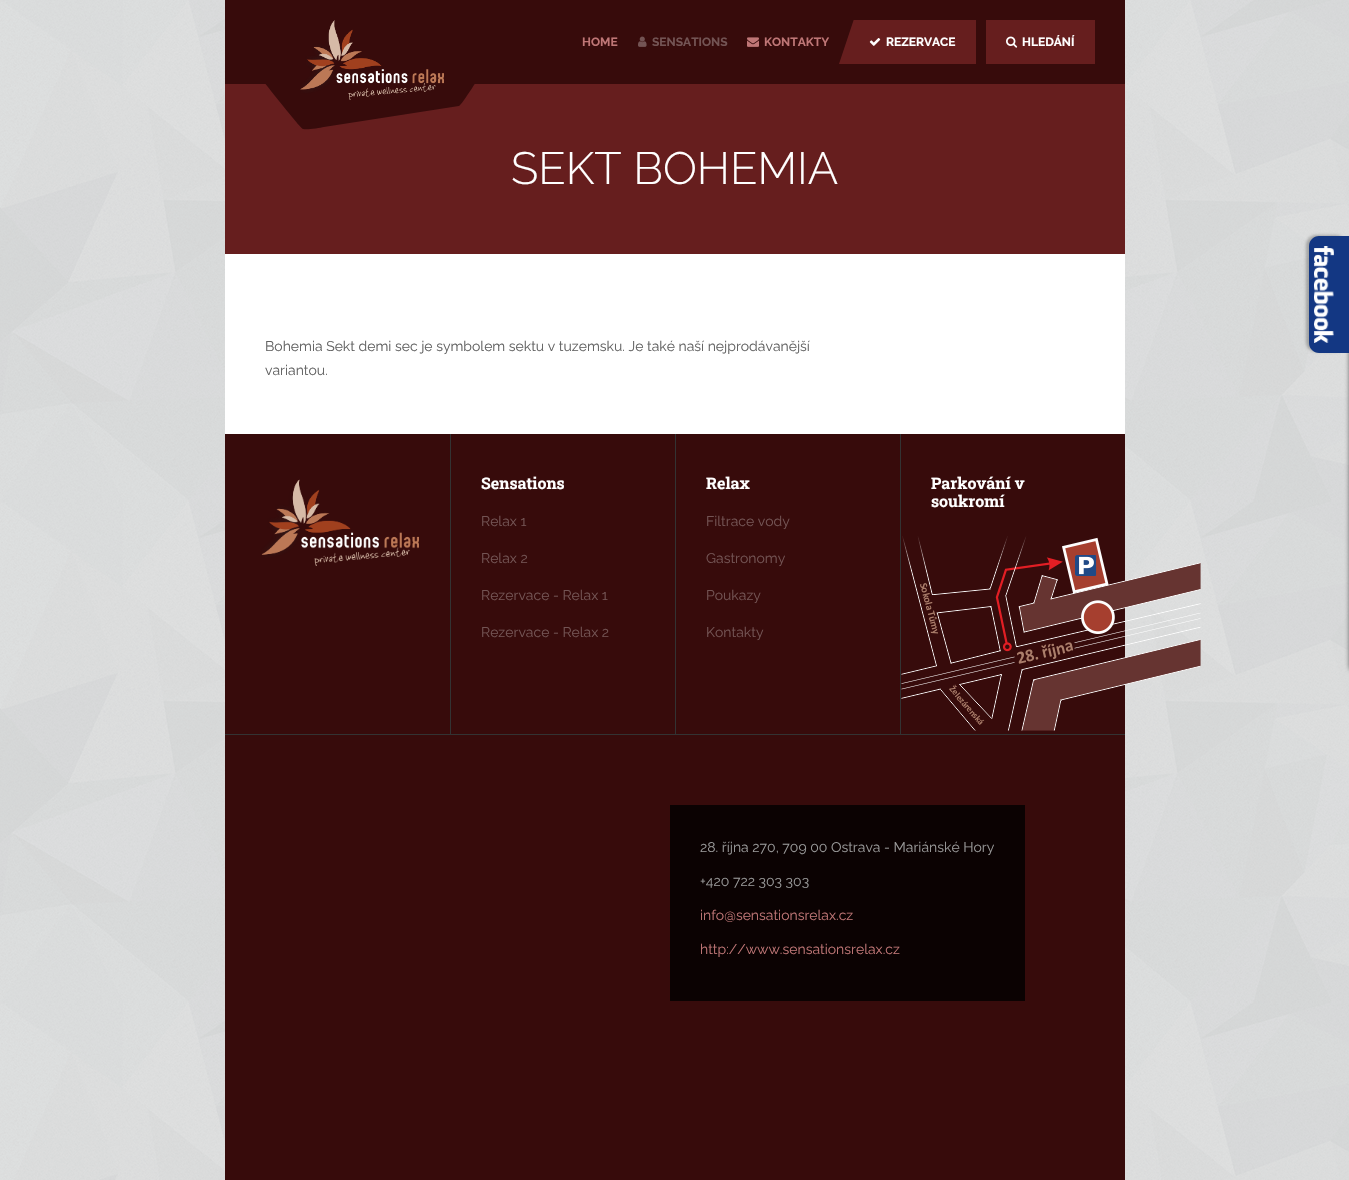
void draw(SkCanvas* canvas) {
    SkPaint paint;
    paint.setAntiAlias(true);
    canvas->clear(0xFFFFFFFF);
    canvas->drawImageRect(SkImages::DeferredFromEncodedData(SkData::MakeFromFileName("img1.png")), SkRect::MakeXYWH(0, 0, 1349, 1180), SkSamplingOptions());
    paint.setColor(0xFF370B0B);
    canvas->drawRect(SkRect::MakeXYWH(225, 0, 900, 84), paint);
    paint.setColor(0xFF661E1E);
    canvas->drawRect(SkRect::MakeXYWH(225, 84, 900, 170), paint);
    paint.setColor(0xFF370B0B);
    canvas->drawPath(SkPathBuilder().moveTo(255, 25).lineTo(255, 71).cubicTo(261, 78, 300, 128, 303, 129).cubicTo(307, 130, 320, 128, 324, 127).lineTo(459, 106).cubicTo(462, 105, 481, 74, 485, 68).lineTo(485, -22).lineTo(255, -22).close().detach(), paint);
    canvas->drawImageRect(SkImages::DeferredFromEncodedData(SkData::MakeFromFileName("img2.png")), SkRect::MakeXYWH(300, 20, 144, 80), SkSamplingOptions());
    SkFont font1(fontMgr->matchFamilyStyle("Raleway", SkFontStyle::Bold()), 12);
    font1.setSubpixel(true);
    paint.setColor(0xFFBF7676);
    canvas->drawString("HOME", 582, 46, font1, paint);
    canvas->drawImageRect(SkImages::DeferredFromEncodedData(SkData::MakeFromFileName("img3.png")), SkRect::MakeXYWH(638, 36, 9, 11), SkSamplingOptions());
    paint.setColor(0xFF735454);
    canvas->drawString("SENSATIONS", 652, 46, font1, paint);
    canvas->drawImageRect(SkImages::DeferredFromEncodedData(SkData::MakeFromFileName("img4.png")), SkRect::MakeXYWH(747, 37, 12, 10), SkSamplingOptions());
    paint.setColor(0xFFBF7676);
    canvas->drawString("KONTAKTY", 764, 46, font1, paint);
    paint.setColor(0xFF661E1E);
    canvas->drawRect(SkRect::MakeXYWH(839, 20, 137, 44), paint);
    paint.setColor(0xFF370B0B);
    canvas->drawPath(SkPathBuilder().moveTo(839, 64).lineTo(839, 19).lineTo(854, 19).close().detach(), paint);
    canvas->drawImageRect(SkImages::DeferredFromEncodedData(SkData::MakeFromFileName("img5.png")), SkRect::MakeXYWH(869, 38, 12, 8), SkSamplingOptions());
    paint.setColor(0xFFFFFFFF);
    canvas->drawString("REZERVACE", 886, 46, font1, paint);
    paint.setColor(0xFF661E1E);
    canvas->drawRect(SkRect::MakeXYWH(986, 20, 109, 44), paint);
    canvas->drawImageRect(SkImages::DeferredFromEncodedData(SkData::MakeFromFileName("img6.png")), SkRect::MakeXYWH(1006, 36, 12, 12), SkSamplingOptions());
    paint.setColor(0xFFFFFFFF);
    canvas->drawString("HLEDÁNÍ", 1022, 46, font1, paint);
    SkFont font2(fontMgr->matchFamilyStyle("Raleway", SkFontStyle(300, SkFontStyle::kNormal_Width, SkFontStyle::kUpright_Slant)), 45);
    font2.setSubpixel(true);
    canvas->drawString("SEKT BOHEMIA", 511, 184, font2, paint);
    canvas->drawRect(SkRect::MakeXYWH(225, 254, 900, 180), paint);
    SkFont font3(fontMgr->matchFamilyStyle("Raleway", SkFontStyle::Normal()), 14);
    font3.setSubpixel(true);
    paint.setColor(0xFF626262);
    canvas->drawString("Bohemia Sekt demi sec je symbolem sektu v tuzemsku. Je také naší nejprodávanější", 265, 351, font3, paint);
    canvas->drawString("variantou.", 265, 375, font3, paint);
    paint.setColor(0xFF370B0B);
    canvas->drawRect(SkRect::MakeXYWH(225, 434, 900, 746), paint);
    paint.setColor(0xFF333333);
    canvas->drawRect(SkRect::MakeXYWH(225, 734, 900, 1), paint);
    canvas->drawImageRect(SkImages::DeferredFromEncodedData(SkData::MakeFromFileName("img7.png")), SkRect::MakeXYWH(261, 479, 158, 87), SkSamplingOptions());
    canvas->drawRect(SkRect::MakeXYWH(450, 434, 1, 300), paint);
    SkFont font4(fontMgr->matchFamilyStyle("Roboto Slab", SkFontStyle::Bold()), 16);
    font4.setSubpixel(true);
    paint.setColor(0xFFFFFFFF);
    canvas->drawString("Sensations", 481, 489, font4, paint);
    paint.setColor(0xFF735454);
    canvas->drawString("Relax 1", 481, 526, font3, paint);
    canvas->drawString("Relax 2", 481, 563, font3, paint);
    canvas->drawString("Rezervace - Relax 1", 481, 600, font3, paint);
    canvas->drawString("Rezervace - Relax 2", 481, 637, font3, paint);
    paint.setColor(0xFF333333);
    canvas->drawRect(SkRect::MakeXYWH(675, 434, 1, 300), paint);
    paint.setColor(0xFFFFFFFF);
    canvas->drawString("Relax", 706, 489, font4, paint);
    paint.setColor(0xFF735454);
    canvas->drawString("Filtrace vody", 706, 526, font3, paint);
    canvas->drawString("Gastronomy", 706, 563, font3, paint);
    canvas->drawString("Poukazy", 706, 600, font3, paint);
    canvas->drawString("Kontakty", 706, 637, font3, paint);
    paint.setColor(0xFF333333);
    canvas->drawRect(SkRect::MakeXYWH(900, 434, 1, 300), paint);
    paint.setColor(0xFFFFFFFF);
    canvas->drawString("Parkování v", 931, 489, font4, paint);
    canvas->drawString("soukromí", 931, 507, font4, paint);
    canvas->drawImageRect(SkImages::DeferredFromEncodedData(SkData::MakeFromFileName("img8.png")), SkRect::MakeXYWH(901, 536, 300, 195), SkSamplingOptions());
    paint.setColor(0xFF0B0202);
    canvas->drawRect(SkRect::MakeXYWH(670, 805, 355, 196), paint);
    paint.setColor(0xFF999999);
    canvas->drawString("28. října 270, 709 00 Ostrava - Mariánské Hory", 700, 852, font3, paint);
    canvas->drawString("+420 722 303 303", 700, 886, font3, paint);
    paint.setColor(0xFFBF7676);
    canvas->drawString("info@sensationsrelax.cz", 700, 920, font3, paint);
    canvas->drawString("http://www.sensationsrelax.cz", 700, 954, font3, paint);
    paint.setColor(0x80000000);
    paint.setMaskFilter(SkMaskFilter::MakeBlur(kNormal_SkBlurStyle, 2));
    canvas->drawRoundRect(SkRect::MakeXYWH(1349, 236, 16, 437), 10, 10, paint);
    paint.setMaskFilter(nullptr);
    paint.setColor(0x40000000);
    paint.setMaskFilter(SkMaskFilter::MakeBlur(kNormal_SkBlurStyle, 1.5f));
    canvas->drawRoundRect(SkRect::MakeXYWH(1306, 235, 40, 117), 10, 10, paint);
    paint.setMaskFilter(nullptr);
    paint.setColor(0xFF133783);
    canvas->drawPath(SkPathBuilder().moveTo(1319, 236).lineTo(1349, 236).lineTo(1349, 353).lineTo(1319, 353).cubicTo(1313.5f, 353, 1309, 348.5f, 1309, 343).lineTo(1309, 246).cubicTo(1309, 240.5f, 1313.5f, 236, 1319, 236).close().detach(), paint);
    canvas->drawImageRect(SkImages::DeferredFromEncodedData(SkData::MakeFromFileName("img9.png")), SkRect::MakeXYWH(1314, 246, 20, 97), SkSamplingOptions());
}
